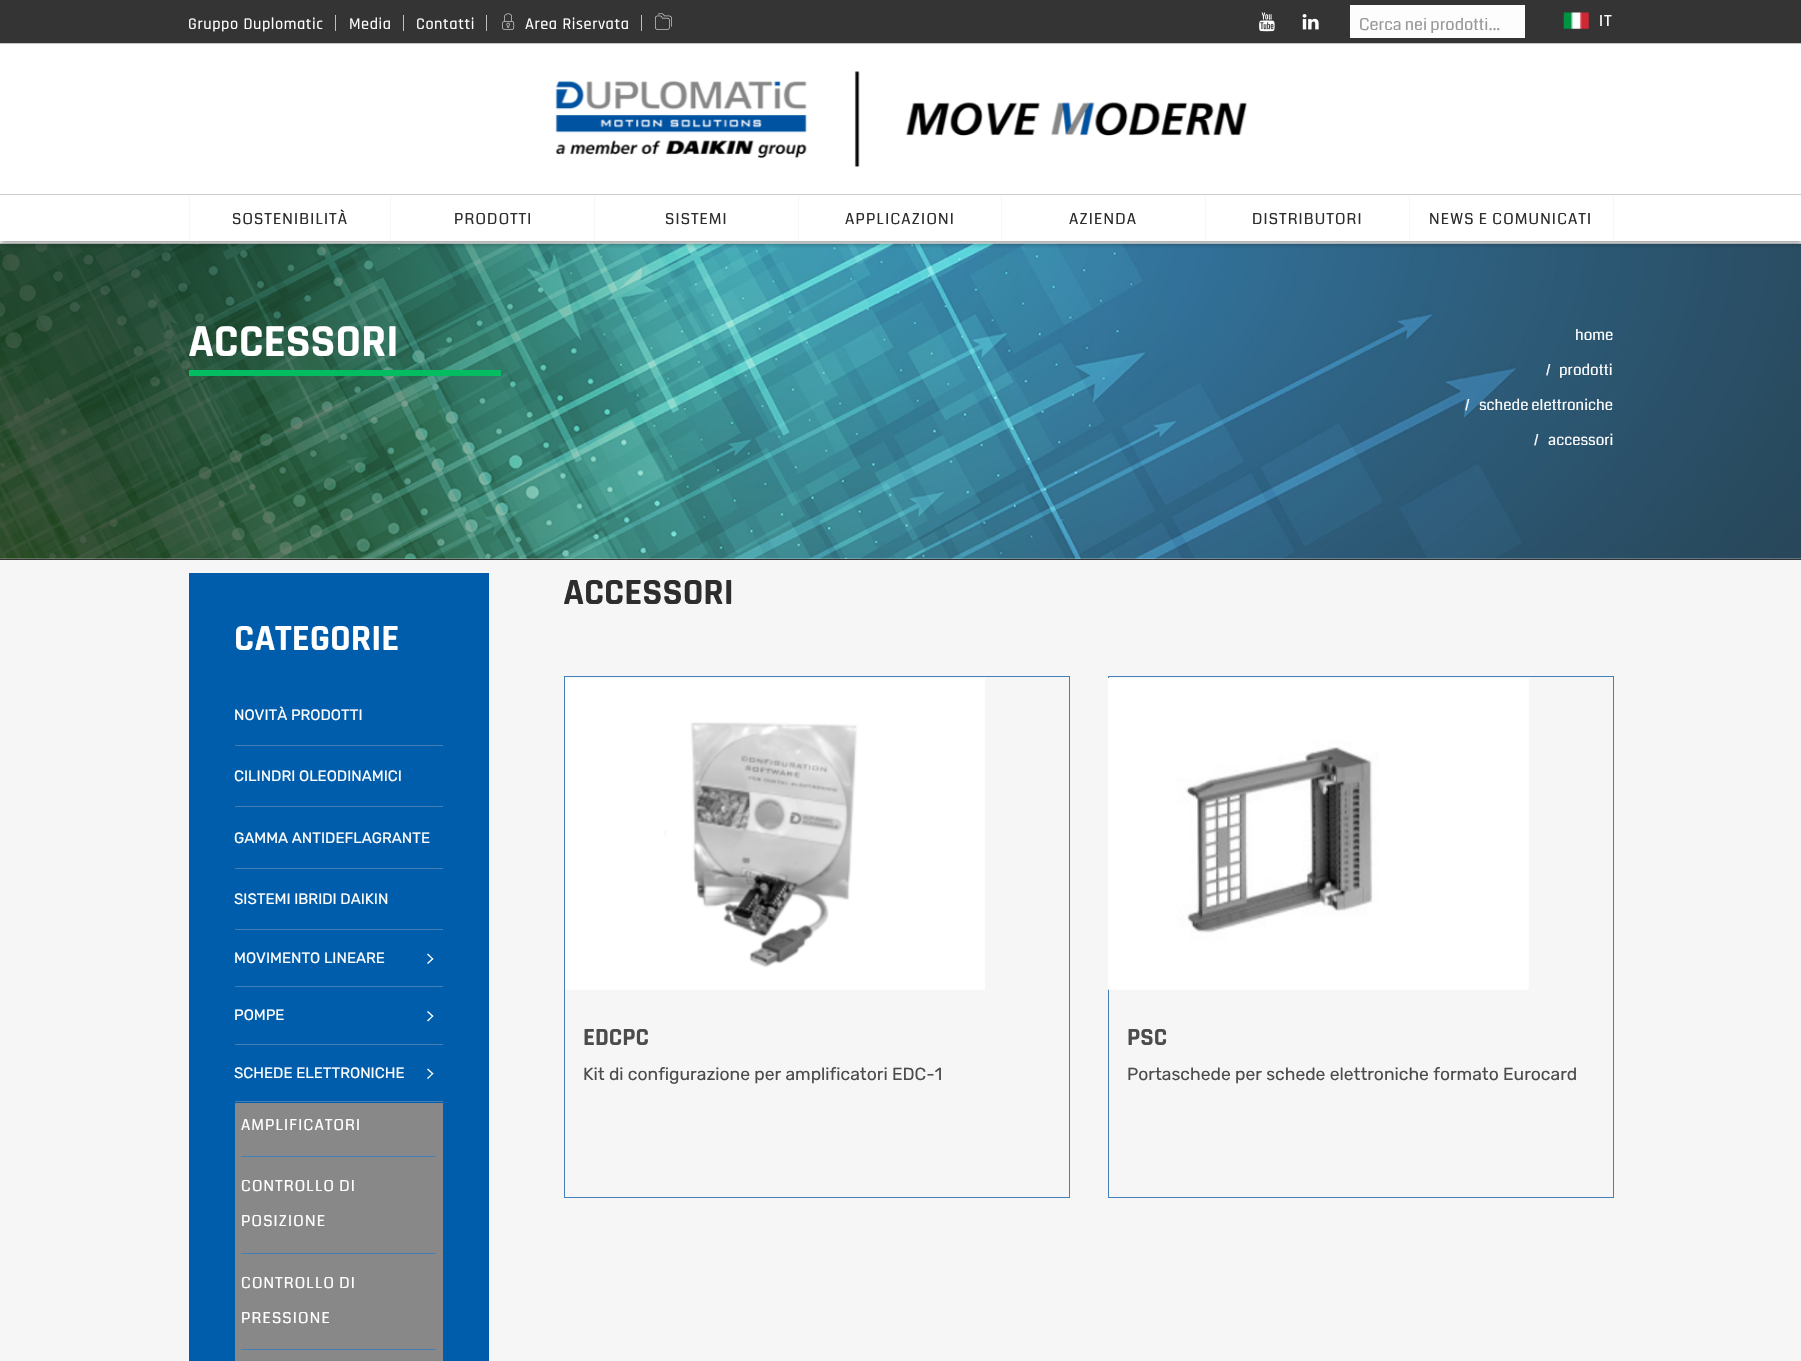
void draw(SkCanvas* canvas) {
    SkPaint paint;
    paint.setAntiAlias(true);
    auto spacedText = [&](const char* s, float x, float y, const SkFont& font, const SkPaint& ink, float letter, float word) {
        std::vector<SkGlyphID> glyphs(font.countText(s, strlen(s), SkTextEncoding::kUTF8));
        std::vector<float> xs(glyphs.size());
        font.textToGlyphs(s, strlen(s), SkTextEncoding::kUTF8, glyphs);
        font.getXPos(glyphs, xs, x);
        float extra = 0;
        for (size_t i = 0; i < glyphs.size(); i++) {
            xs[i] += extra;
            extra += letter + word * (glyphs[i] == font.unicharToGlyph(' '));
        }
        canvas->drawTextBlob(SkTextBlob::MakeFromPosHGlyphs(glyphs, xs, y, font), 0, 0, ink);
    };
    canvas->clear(0xFFFFFFFF);
    canvas->drawImageRect(SkImages::DeferredFromEncodedData(SkData::MakeFromFileName("img7.png")), SkRect::MakeXYWH(0, 243, 1801, 316), SkSamplingOptions());
    canvas->save();
    canvas->clipRect(SkRect::MakeXYWH(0, 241, 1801, 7));
    paint.setColor(0x3B000000);
    paint.setMaskFilter(SkMaskFilter::MakeBlur(kNormal_SkBlurStyle, 2));
    canvas->drawRect(SkRect::MakeXYWH(0, 4, 1801, 241), paint);
    paint.setMaskFilter(nullptr);
    canvas->restore();
    canvas->save();
    canvas->clipRect(SkRect::MakeXYWH(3, 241, 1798, 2));
    paint.setColor(0x30000000);
    paint.setMaskFilter(SkMaskFilter::MakeBlur(kNormal_SkBlurStyle, 2));
    canvas->drawRect(SkRect::MakeXYWH(4, 0, 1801, 241), paint);
    paint.setMaskFilter(nullptr);
    canvas->restore();
    paint.setColor(0xFF343434);
    canvas->drawRect(SkRect::MakeXYWH(0, 0, 1801, 43), paint);
    paint.setColor(0xFFC3C3C3);
    canvas->drawRect(SkRect::MakeXYWH(0, 43, 1801, 1), paint);
    SkFont font1(fontMgr->matchFamilyStyle("Rajdhani", SkFontStyle(500, SkFontStyle::kNormal_Width, SkFontStyle::kUpright_Slant)), 16.25f);
    font1.setSubpixel(true);
    paint.setColor(0xFFFFFFFF);
    spacedText("Gruppo Duplomatic", 188, 29, font1, paint, 0.6f, 0);
    paint.setColor(0xFFBEBEBE);
    canvas->drawRect(SkRect::MakeXYWH(335, 15, 1, 16), paint);
    paint.setColor(0xFFCCCCCC);
    canvas->drawRect(SkRect::MakeXYWH(335, 15, 1, 1), paint);
    paint.setColor(0xFFFFFFFF);
    spacedText("Media", 349, 29, font1, paint, 0.6f, 0);
    paint.setColor(0xFFBEBEBE);
    canvas->drawRect(SkRect::MakeXYWH(403, 15, 1, 16), paint);
    paint.setColor(0xFFCCCCCC);
    canvas->drawRect(SkRect::MakeXYWH(403, 15, 1, 1), paint);
    paint.setColor(0xFFFFFFFF);
    spacedText("Contatti", 416, 29, font1, paint, 0.6f, 0);
    paint.setColor(0xFFBEBEBE);
    canvas->drawRect(SkRect::MakeXYWH(486, 15, 1, 16), paint);
    paint.setColor(0xFFCCCCCC);
    canvas->drawRect(SkRect::MakeXYWH(486, 15, 1, 1), paint);
    canvas->drawImageRect(SkImages::DeferredFromEncodedData(SkData::MakeFromFileName("img1.png")), SkRect::MakeXYWH(502, 13, 13, 17), SkSamplingOptions());
    paint.setColor(0xFFFFFFFF);
    spacedText("Area Riservata", 525, 29, font1, paint, 0.6f, 0);
    paint.setColor(0xFFBEBEBE);
    canvas->drawRect(SkRect::MakeXYWH(641, 15, 1, 16), paint);
    paint.setColor(0xFFCCCCCC);
    canvas->drawRect(SkRect::MakeXYWH(641, 15, 1, 1), paint);
    canvas->drawImageRect(SkImages::DeferredFromEncodedData(SkData::MakeFromFileName("img2.png")), SkRect::MakeXYWH(655, 13, 17, 17), SkSamplingOptions());
    canvas->drawImageRect(SkImages::DeferredFromEncodedData(SkData::MakeFromFileName("img3.png")), SkRect::MakeXYWH(1259, 12, 16, 20), SkSamplingOptions());
    canvas->drawImageRect(SkImages::DeferredFromEncodedData(SkData::MakeFromFileName("img4.png")), SkRect::MakeXYWH(1302, 14, 17, 16), SkSamplingOptions());
    paint.setColor(0xFFFDFDFD);
    canvas->drawRect(SkRect::MakeXYWH(1350, 5, 175, 33), paint);
    SkFont font2(fontMgr->matchFamilyStyle("Coda", SkFontStyle::Normal()), 16.25f);
    font2.setSubpixel(true);
    paint.setColor(0xFF999999);
    canvas->drawString("Cerca nei prodotti...", 1359, 30, font2, paint);
    canvas->drawImageRect(SkImages::DeferredFromEncodedData(SkData::MakeFromFileName("img5.png")), SkRect::MakeXYWH(1563, 12, 26, 17), SkSamplingOptions());
    SkFont font3(fontMgr->matchFamilyStyle("Coda", SkFontStyle::Normal()), 15);
    font3.setSubpixel(true);
    paint.setColor(0xFFFFFFFF);
    spacedText("IT", 1599, 26, font3, paint, 1.25f, 0);
    canvas->drawImageRect(SkImages::DeferredFromEncodedData(SkData::MakeFromFileName("img6.png")), SkRect::MakeXYWH(555, 71, 692, 97), SkSamplingOptions());
    paint.setColor(0xFFCCCCCC);
    canvas->drawRect(SkRect::MakeXYWH(0, 194, 1801, 1), paint);
    paint.setColor(0xFFF7F7F7);
    canvas->drawRect(SkRect::MakeXYWH(390, 195, 1, 46), paint);
    canvas->drawRect(SkRect::MakeXYWH(189, 195, 1, 46), paint);
    paint.setColor(0xFF2D2D2D);
    spacedText("SOSTENIBILITÀ", 232, 224, font3, paint, 1.25f, 0);
    paint.setColor(0xFFF7F7F7);
    canvas->drawRect(SkRect::MakeXYWH(594, 195, 1, 46), paint);
    paint.setColor(0xFF2D2D2D);
    spacedText("PRODOTTI", 454, 224, font3, paint, 1.25f, 0);
    paint.setColor(0xFFF7F7F7);
    canvas->drawRect(SkRect::MakeXYWH(798, 195, 1, 46), paint);
    paint.setColor(0xFF2D2D2D);
    spacedText("SISTEMI", 665, 224, font3, paint, 1.25f, 0);
    paint.setColor(0xFFF7F7F7);
    canvas->drawRect(SkRect::MakeXYWH(1001, 195, 1, 46), paint);
    paint.setColor(0xFF2D2D2D);
    spacedText("APPLICAZIONI", 845, 224, font3, paint, 1.25f, 0);
    paint.setColor(0xFFF7F7F7);
    canvas->drawRect(SkRect::MakeXYWH(1205, 195, 1, 46), paint);
    paint.setColor(0xFF2D2D2D);
    spacedText("AZIENDA", 1069, 224, font3, paint, 1.25f, 0);
    paint.setColor(0xFFF7F7F7);
    canvas->drawRect(SkRect::MakeXYWH(1409, 195, 1, 46), paint);
    paint.setColor(0xFF2D2D2D);
    spacedText("DISTRIBUTORI", 1252, 224, font3, paint, 1.25f, 0);
    paint.setColor(0xFFF7F7F7);
    canvas->drawRect(SkRect::MakeXYWH(1613, 195, 1, 46), paint);
    paint.setColor(0xFF2D2D2D);
    spacedText("NEWS E COMUNICATI", 1429, 224, font3, paint, 1.25f, 0);
    paint.setColor(0xFF343434);
    canvas->drawRect(SkRect::MakeXYWH(0, 559, 1801, 1), paint);
    SkFont font4(fontMgr->matchFamilyStyle("Rajdhani", SkFontStyle::Bold()), 46.25f);
    font4.setSubpixel(true);
    paint.setColor(0xFFFFFFFF);
    canvas->drawString("ACCESSORI", 188, 356, font4, paint);
    paint.setColor(0xFF05BD61);
    canvas->drawRect(SkRect::MakeXYWH(189, 370, 312, 6), paint);
    paint.setColor(0xFFFFFFFF);
    canvas->drawString("home", 1575, 340, font3, paint);
    canvas->drawString("/", 1546, 375, font3, paint);
    canvas->drawString("prodotti", 1559, 375, font3, paint);
    canvas->drawString("/", 1465, 410, font3, paint);
    canvas->drawString("schede elettroniche", 1479, 410, font3, paint);
    canvas->drawString("/", 1534, 445, font3, paint);
    canvas->drawString("accessori", 1548, 445, font3, paint);
    paint.setColor(0xFFF6F6F6);
    canvas->drawRect(SkRect::MakeXYWH(0, 560, 1801, 801), paint);
    paint.setColor(0xFF005DAB);
    canvas->drawRect(SkRect::MakeXYWH(189, 573, 300, 788), paint);
    SkFont font5(fontMgr->matchFamilyStyle("Rajdhani", SkFontStyle::Bold()), 37.5f);
    font5.setSubpixel(true);
    paint.setColor(0xFFFFFFFF);
    canvas->drawString("CATEGORIE", 234, 650, font5, paint);
    paint.setColor(0xFF447FB7);
    canvas->drawRect(SkRect::MakeXYWH(235, 745, 208, 1), paint);
    SkFont font6(fontMgr->matchFamilyStyle("Rubik", SkFontStyle::Normal()), 15);
    font6.setSubpixel(true);
    paint.setColor(0xFFFFFFFF);
    canvas->drawString("NOVITÀ PRODOTTI", 234, 720, font6, paint);
    paint.setColor(0xFF447FB7);
    canvas->drawRect(SkRect::MakeXYWH(235, 806, 208, 1), paint);
    paint.setColor(0xFFFFFFFF);
    canvas->drawString("CILINDRI OLEODINAMICI", 234, 781, font6, paint);
    paint.setColor(0xFF447FB7);
    canvas->drawRect(SkRect::MakeXYWH(235, 868, 208, 1), paint);
    paint.setColor(0xFFFFFFFF);
    canvas->drawString("GAMMA ANTIDEFLAGRANTE", 234, 843, font6, paint);
    paint.setColor(0xFF447FB7);
    canvas->drawRect(SkRect::MakeXYWH(235, 929, 208, 1), paint);
    paint.setColor(0xFFFFFFFF);
    canvas->drawString("SISTEMI IBRIDI DAIKIN", 234, 904, font6, paint);
    paint.setColor(0xFF447FB7);
    canvas->drawRect(SkRect::MakeXYWH(235, 986, 208, 1), paint);
    paint.setColor(0xFFFFFFFF);
    canvas->drawString("MOVIMENTO LINEARE", 234, 963, font6, paint);
    canvas->drawPath(SkPathBuilder().moveTo(428, 953.5f).lineTo(433.5f, 959).lineTo(432.5f, 959.5f).lineTo(427, 954.5f).close().detach(), paint);
    canvas->drawPath(SkPathBuilder().moveTo(432.5f, 958).lineTo(433.5f, 959).lineTo(428, 964).lineTo(427, 963).close().moveTo(428, 1011).lineTo(433.5f, 1016).lineTo(432.5f, 1017).lineTo(427, 1012).close().detach(), paint);
    paint.setColor(0xFF447FB7);
    canvas->drawRect(SkRect::MakeXYWH(235, 1044, 208, 1), paint);
    paint.setColor(0xFFFFFFFF);
    canvas->drawString("POMPE", 234, 1020, font6, paint);
    canvas->drawPath(SkPathBuilder().moveTo(432.5f, 1015.5f).lineTo(433.5f, 1016).lineTo(428, 1021.5f).lineTo(427, 1020.5f).close().detach(), paint);
    paint.setColor(0xFF447FB7);
    canvas->drawRect(SkRect::MakeXYWH(235, 1101, 208, 1), paint);
    paint.setColor(0xFFFFFFFF);
    canvas->drawString("SCHEDE ELETTRONICHE", 234, 1078, font6, paint);
    canvas->drawPath(SkPathBuilder().moveTo(428, 1068.5f).lineTo(433.5f, 1073.5f).lineTo(432.5f, 1074.5f).lineTo(427, 1069.5f).close().detach(), paint);
    canvas->drawPath(SkPathBuilder().moveTo(432.5f, 1073).lineTo(433.5f, 1073.5f).lineTo(428, 1079).lineTo(427, 1078).close().detach(), paint);
    paint.setColor(0xFF888888);
    canvas->drawRect(SkRect::MakeXYWH(235, 1103, 208, 258), paint);
    paint.setColor(0xFF447FB7);
    canvas->drawRect(SkRect::MakeXYWH(241, 1156, 195, 1), paint);
    paint.setColor(0xFFFFFFFF);
    spacedText("AMPLIFICATORI", 241, 1130, font3, paint, 1.25f, 0);
    paint.setColor(0xFF447FB7);
    canvas->drawRect(SkRect::MakeXYWH(241, 1253, 195, 1), paint);
    paint.setColor(0xFFFFFFFF);
    spacedText("CONTROLLO DI", 241, 1191, font3, paint, 1.25f, 0);
    spacedText("POSIZIONE", 241, 1226, font3, paint, 1.25f, 0);
    paint.setColor(0xFF447FB7);
    canvas->drawRect(SkRect::MakeXYWH(241, 1349, 195, 1), paint);
    paint.setColor(0xFFFFFFFF);
    spacedText("CONTROLLO DI", 241, 1288, font3, paint, 1.25f, 0);
    spacedText("PRESSIONE", 241, 1323, font3, paint, 1.25f, 0);
    paint.setColor(0xFF2D2D2D);
    canvas->drawString("ACCESSORI", 563, 604, font5, paint);
    paint.setStyle(SkPaint::kStroke_Style);
    paint.setStrokeWidth(1);
    paint.setColor(0xFF447FB7);
    canvas->drawRect(SkRect::MakeXYWH(564.5f, 676.5f, 505, 521), paint);
    canvas->drawImageRect(SkImages::DeferredFromEncodedData(SkData::MakeFromFileName("img8.png")), SkRect::MakeXYWH(565, 678, 420, 312), SkSamplingOptions());
    SkFont font7(fontMgr->matchFamilyStyle("Rajdhani", SkFontStyle::Bold()), 25);
    font7.setSubpixel(true);
    paint.setStyle(SkPaint::kFill_Style);
    paint.setColor(0xFF4C4C4C);
    canvas->drawString("EDCPC", 583, 1045, font7, paint);
    SkFont font8(fontMgr->matchFamilyStyle("Rubik", SkFontStyle::Normal()), 17.5f);
    font8.setSubpixel(true);
    canvas->drawString("Kit di configurazione per amplificatori EDC-1", 583, 1080, font8, paint);
    paint.setStyle(SkPaint::kStroke_Style);
    paint.setColor(0xFF447FB7);
    canvas->drawRect(SkRect::MakeXYWH(1108.5f, 676.5f, 505, 521), paint);
    canvas->drawImageRect(SkImages::DeferredFromEncodedData(SkData::MakeFromFileName("img9.png")), SkRect::MakeXYWH(1108, 678, 421, 312), SkSamplingOptions());
    paint.setStyle(SkPaint::kFill_Style);
    paint.setColor(0xFF4C4C4C);
    canvas->drawString("PSC", 1127, 1045, font7, paint);
    canvas->drawString("Portaschede per schede elettroniche formato Eurocard", 1127, 1080, font8, paint);
}
